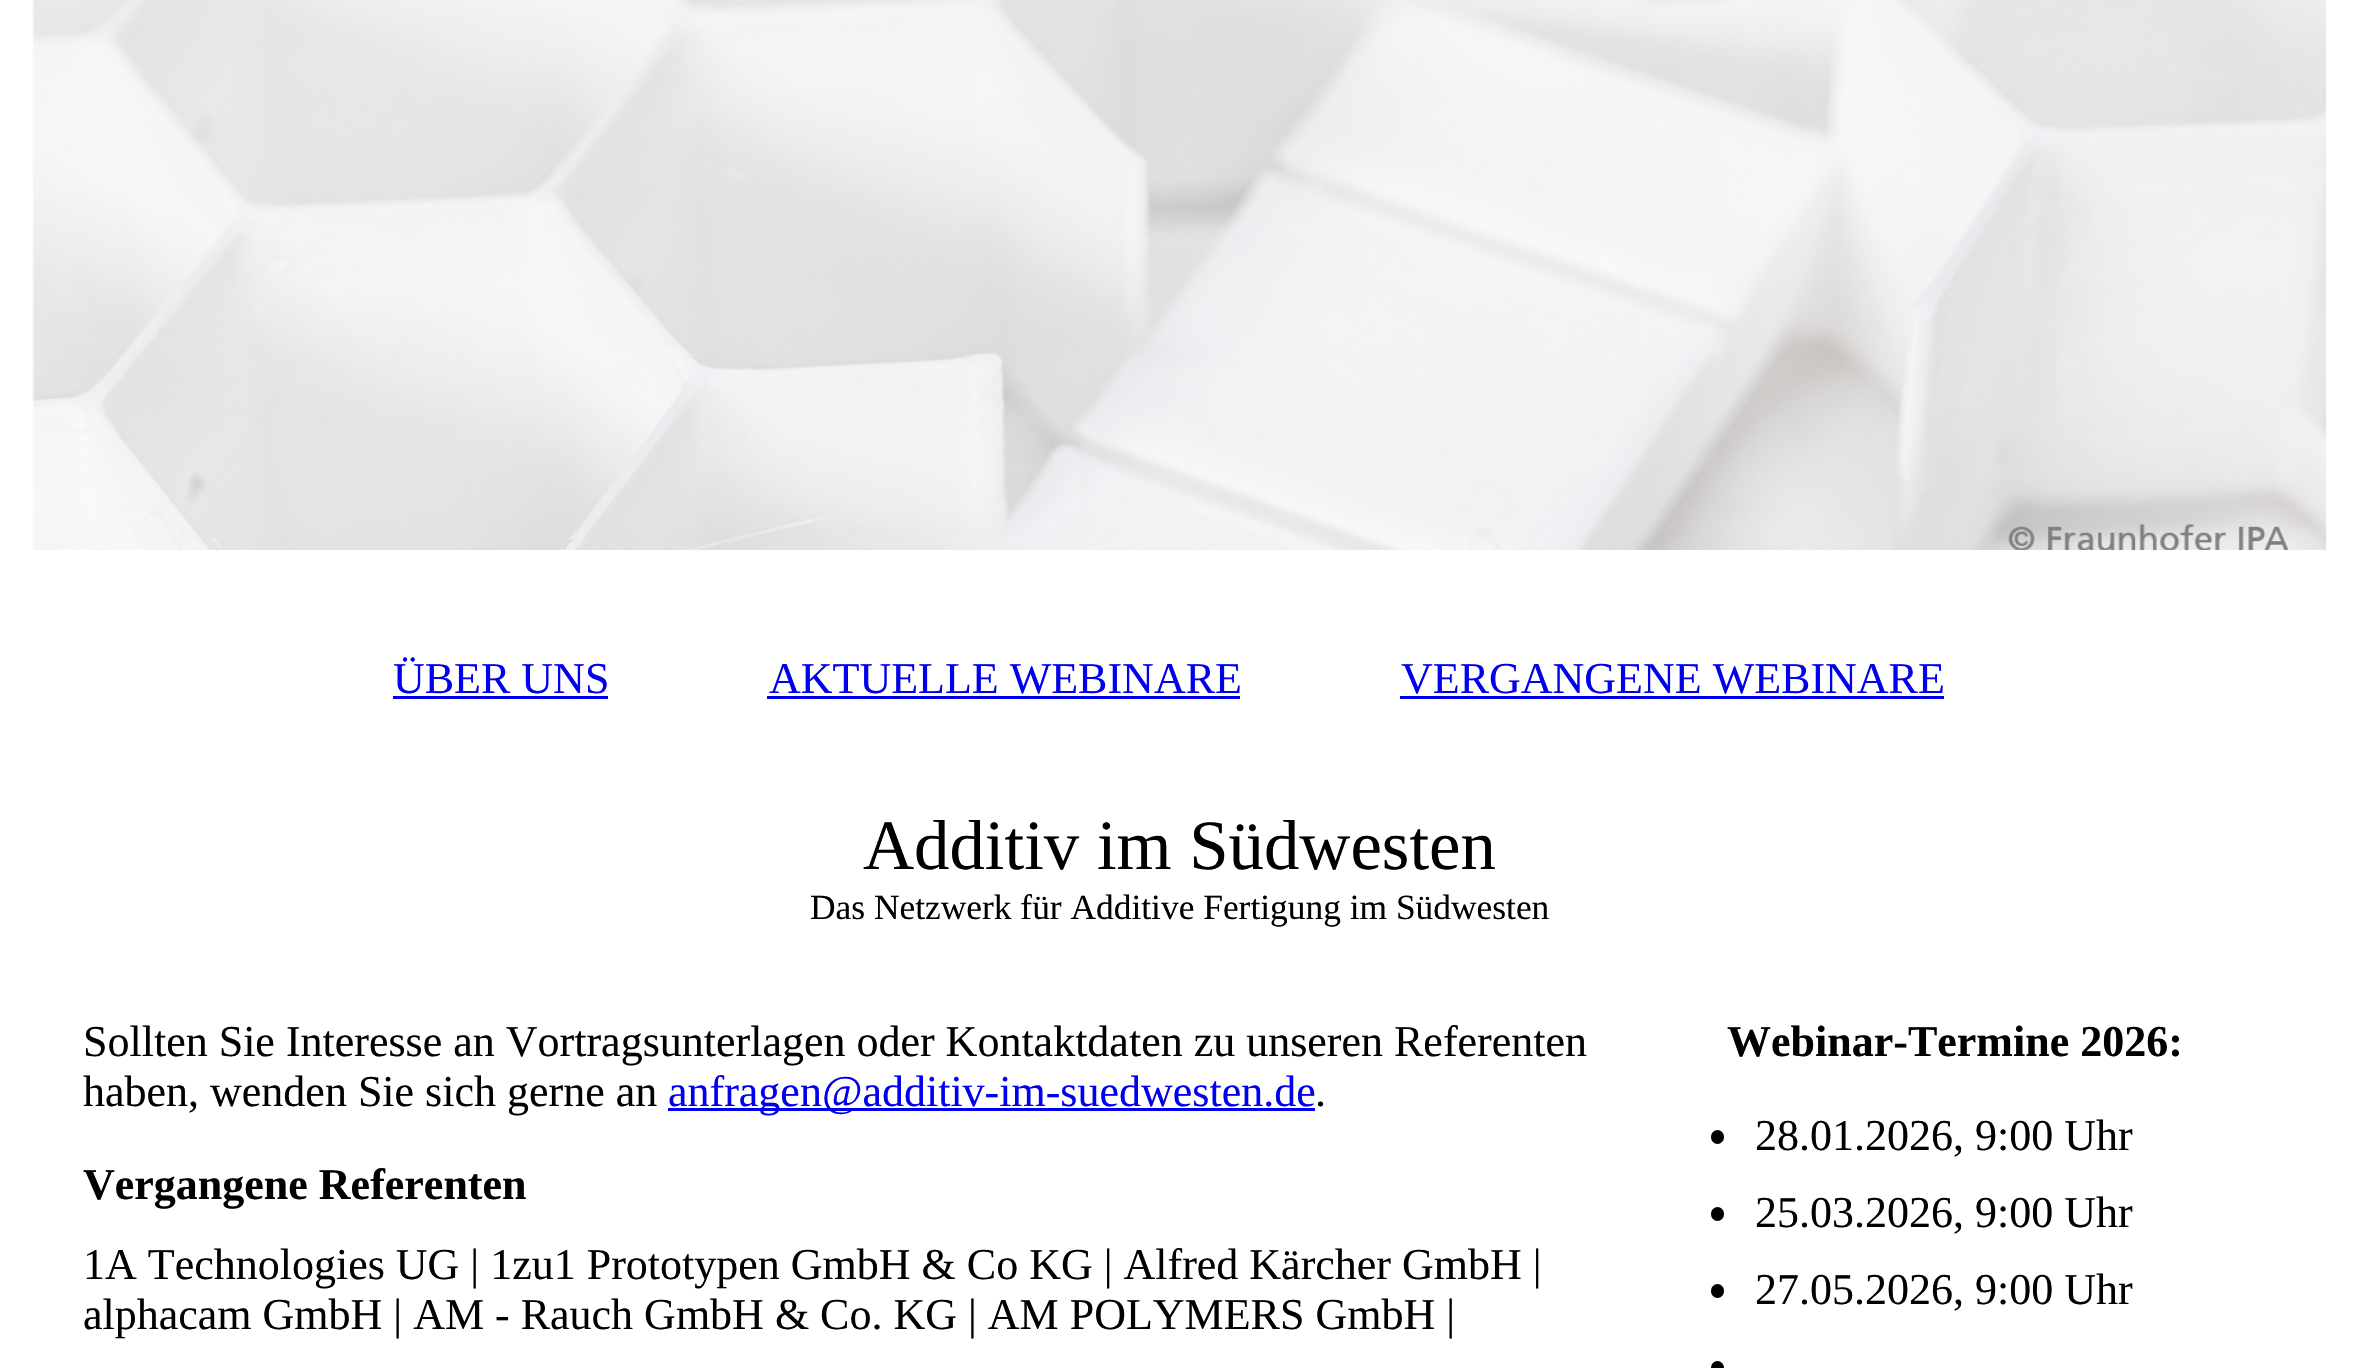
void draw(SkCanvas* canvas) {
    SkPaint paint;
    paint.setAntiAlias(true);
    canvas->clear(0xFFFFFFFF);
    canvas->drawImageRect(SkImages::DeferredFromEncodedData(SkData::MakeFromFileName("img1.png")), SkRect::MakeXYWH(32, 0, 2295, 550), SkSamplingOptions());
    SkFont font1(fontMgr->matchFamilyStyle("Liberation Serif", SkFontStyle::Normal()), 44);
    font1.setSubpixel(true);
    paint.setColor(0xFF0000EE);
    canvas->drawString("ÜBER UNS", 393, 693, font1, paint);
    canvas->drawRect(SkRect::MakeXYWH(393, 696, 215, 3), paint);
    canvas->drawString("AKTUELLE WEBINARE", 769, 693, font1, paint);
    canvas->drawRect(SkRect::MakeXYWH(767, 696, 473, 3), paint);
    canvas->drawString("VERGANGENE WEBINARE", 1401, 693, font1, paint);
    canvas->drawRect(SkRect::MakeXYWH(1400, 696, 544, 3), paint);
    SkFont font2(fontMgr->matchFamilyStyle("Liberation Serif", SkFontStyle::Normal()), 70.75f);
    font2.setSubpixel(true);
    paint.setColor(0xFF000000);
    canvas->drawString("Additiv im Südwesten", 863, 869, font2, paint);
    SkFont font3(fontMgr->matchFamilyStyle("Liberation Serif", SkFontStyle::Normal()), 35.4f);
    font3.setSubpixel(true);
    canvas->drawString("Das Netzwerk für Additive Fertigung im Südwesten", 810, 919, font3, paint);
    canvas->drawString("Sollten Sie Interesse an Vortragsunterlagen oder Kontaktdaten zu unseren Referenten", 83, 1056, font1, paint);
    canvas->drawString("haben, wenden Sie sich gerne an", 83, 1106, font1, paint);
    paint.setColor(0xFF0000EE);
    canvas->drawRect(SkRect::MakeXYWH(668, 1108, 647, 3), paint);
    canvas->drawString("anfragen@additiv-im-suedwesten.de", 668, 1106, font1, paint);
    paint.setColor(0xFF000000);
    canvas->drawString(".", 1315, 1106, font1, paint);
    SkFont font4(fontMgr->matchFamilyStyle("Liberation Serif", SkFontStyle::Bold()), 44);
    font4.setSubpixel(true);
    canvas->drawString("Vergangene Referenten", 83, 1199, font4, paint);
    canvas->drawString("1A Technologies UG | 1zu1 Prototypen GmbH & Co KG | Alfred Kärcher GmbH |", 83, 1279, font1, paint);
    canvas->drawString("alphacam GmbH | AM - Rauch GmbH & Co. KG | AM POLYMERS GmbH |", 83, 1329, font1, paint);
    canvas->drawString("Webinar-Termine 2026:", 1727, 1056, font4, paint);
    canvas->drawRoundRect(SkRect::MakeXYWH(1711, 1130, 13, 14), 6.5f, 6.5f, paint);
    canvas->drawString("28.01.2026, 9:00 Uhr", 1755, 1150, font1, paint);
    canvas->drawRoundRect(SkRect::MakeXYWH(1711, 1207, 13, 14), 6.5f, 6.5f, paint);
    canvas->drawString("25.03.2026, 9:00 Uhr", 1755, 1227, font1, paint);
    canvas->drawRoundRect(SkRect::MakeXYWH(1711, 1284, 13, 14), 6.5f, 6.5f, paint);
    canvas->drawString("27.05.2026, 9:00 Uhr", 1755, 1304, font1, paint);
    canvas->drawRoundRect(SkRect::MakeXYWH(1711, 1361, 13, 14), 6.5f, 6.5f, paint);
}
